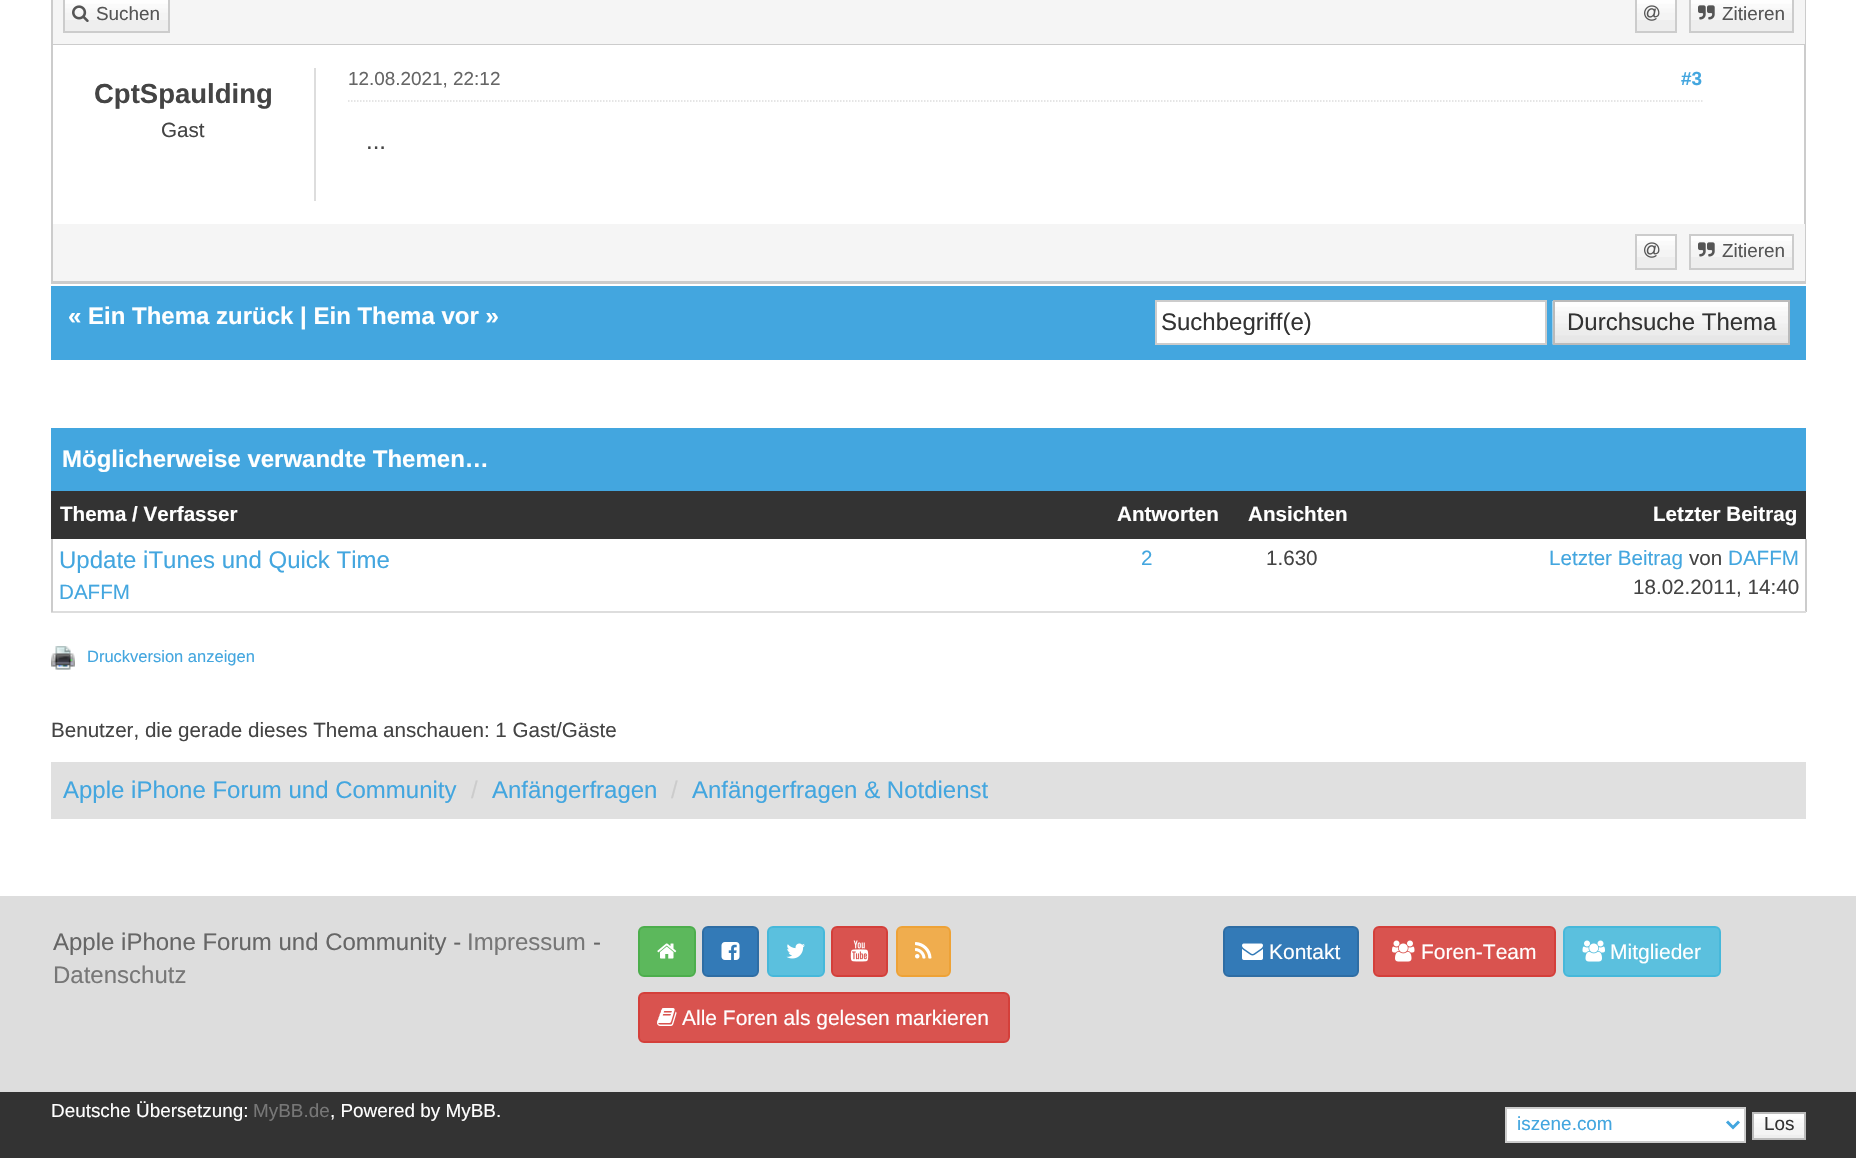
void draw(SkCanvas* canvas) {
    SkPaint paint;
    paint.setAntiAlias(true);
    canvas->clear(0xFFFFFFFF);
    paint.setStyle(SkPaint::kStroke_Style);
    paint.setStrokeWidth(2);
    paint.setColor(0xFFCCCCCC);
    canvas->drawRect(SkRect::MakeXYWH(52, -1, 1753, 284), paint);
    paint.setStyle(SkPaint::kFill_Style);
    paint.setColor(0xFFF5F5F5);
    canvas->drawRect(SkRect::MakeXYWH(53, 0, 1752, 44), paint);
    paint.setColor(0xFFCCCCCC);
    canvas->drawRect(SkRect::MakeXYWH(53, 44, 1752, 1), paint);
    paint.setColor(0xFFEEEEEE);
    canvas->drawRect(SkRect::MakeXYWH(65, 20, 103, 11), paint);
    canvas->drawImageRect(SkImages::DeferredFromEncodedData(SkData::MakeFromFileName("img1.png")), SkRect::MakeXYWH(65, 0, 103, 20), SkSamplingOptions());
    paint.setStyle(SkPaint::kStroke_Style);
    paint.setColor(0xFFCCCCCC);
    canvas->drawRect(SkRect::MakeXYWH(64, -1, 105, 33), paint);
    canvas->drawImageRect(SkImages::DeferredFromEncodedData(SkData::MakeFromFileName("img2.png")), SkRect::MakeXYWH(72, 5, 17, 17), SkSamplingOptions());
    SkFont font1(fontMgr->matchFamilyStyle("Liberation Sans", SkFontStyle::Normal()), 18.9f);
    font1.setSubpixel(true);
    paint.setStyle(SkPaint::kFill_Style);
    paint.setColor(0xFF555555);
    canvas->drawString("Suchen", 96, 20, font1, paint);
    paint.setColor(0xFFEEEEEE);
    canvas->drawRect(SkRect::MakeXYWH(1637, 20, 38, 11), paint);
    canvas->drawImageRect(SkImages::DeferredFromEncodedData(SkData::MakeFromFileName("img3.png")), SkRect::MakeXYWH(1637, 0, 38, 20), SkSamplingOptions());
    paint.setStyle(SkPaint::kStroke_Style);
    paint.setColor(0xFFCCCCCC);
    canvas->drawRect(SkRect::MakeXYWH(1636, -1, 40, 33), paint);
    canvas->drawImageRect(SkImages::DeferredFromEncodedData(SkData::MakeFromFileName("img4.png")), SkRect::MakeXYWH(1644, 5, 16, 16), SkSamplingOptions());
    paint.setStyle(SkPaint::kFill_Style);
    paint.setColor(0xFFEEEEEE);
    canvas->drawRect(SkRect::MakeXYWH(1691, 20, 101, 11), paint);
    canvas->drawImageRect(SkImages::DeferredFromEncodedData(SkData::MakeFromFileName("img5.png")), SkRect::MakeXYWH(1691, 0, 101, 20), SkSamplingOptions());
    paint.setStyle(SkPaint::kStroke_Style);
    paint.setColor(0xFFCCCCCC);
    canvas->drawRect(SkRect::MakeXYWH(1690, -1, 103, 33), paint);
    canvas->drawImageRect(SkImages::DeferredFromEncodedData(SkData::MakeFromFileName("img6.png")), SkRect::MakeXYWH(1698, 5, 17, 15), SkSamplingOptions());
    paint.setStyle(SkPaint::kFill_Style);
    paint.setColor(0xFF555555);
    canvas->drawString("Zitieren", 1722, 20, font1, paint);
    paint.setColor(0xFFDDDDDD);
    canvas->drawRect(SkRect::MakeXYWH(314, 68, 2, 133), paint);
    SkFont font2(fontMgr->matchFamilyStyle("Liberation Sans", SkFontStyle::Bold()), 27.5f);
    font2.setSubpixel(true);
    paint.setColor(0xFF444444);
    canvas->drawString("CptSpaulding", 94, 103, font2, paint);
    SkFont font3(fontMgr->matchFamilyStyle("Liberation Sans", SkFontStyle::Normal()), 20.6f);
    font3.setSubpixel(true);
    canvas->drawString("Gast", 161, 137, font3, paint);
    paint.setStyle(SkPaint::kStroke_Style);
    paint.setStrokeWidth(1.5f);
    paint.setColor(0xFFDDDDDD);
    paint.setPathEffect(SkDashPathEffect::Make({{1.5f, 1.5f}}, 0));
    canvas->drawPath(SkPathBuilder().moveTo(348, 101).lineTo(1702.5f, 101).detach(), paint);
    paint.setPathEffect(nullptr);
    paint.setStyle(SkPaint::kFill_Style);
    paint.setColor(0xFF666666);
    canvas->drawString("12.08.2021, 22:12", 348, 85, font1, paint);
    SkFont font4(fontMgr->matchFamilyStyle("Liberation Sans", SkFontStyle::Bold()), 18.9f);
    font4.setSubpixel(true);
    paint.setColor(0xFF43A6DF);
    canvas->drawString("#3", 1681, 85, font4, paint);
    SkFont font5(fontMgr->matchFamilyStyle("Liberation Sans", SkFontStyle::Normal()), 24);
    font5.setSubpixel(true);
    paint.setColor(0xFF444444);
    canvas->drawString("...", 366, 149, font5, paint);
    paint.setColor(0xFFF5F5F5);
    canvas->drawRect(SkRect::MakeXYWH(53, 224, 1752, 57), paint);
    paint.setColor(0xFFCCCCCC);
    canvas->drawRect(SkRect::MakeXYWH(53, 281, 1752, 1), paint);
    paint.setColor(0xFFEEEEEE);
    canvas->drawRect(SkRect::MakeXYWH(1637, 257, 38, 11), paint);
    canvas->drawImageRect(SkImages::DeferredFromEncodedData(SkData::MakeFromFileName("img7.png")), SkRect::MakeXYWH(1637, 236, 38, 21), SkSamplingOptions());
    paint.setStyle(SkPaint::kStroke_Style);
    paint.setStrokeWidth(2);
    paint.setColor(0xFFCCCCCC);
    canvas->drawRect(SkRect::MakeXYWH(1636, 235, 40, 34), paint);
    canvas->drawImageRect(SkImages::DeferredFromEncodedData(SkData::MakeFromFileName("img4.png")), SkRect::MakeXYWH(1644, 242, 16, 16), SkSamplingOptions());
    paint.setStyle(SkPaint::kFill_Style);
    paint.setColor(0xFFEEEEEE);
    canvas->drawRect(SkRect::MakeXYWH(1691, 257, 101, 11), paint);
    canvas->drawImageRect(SkImages::DeferredFromEncodedData(SkData::MakeFromFileName("img8.png")), SkRect::MakeXYWH(1691, 236, 101, 21), SkSamplingOptions());
    paint.setStyle(SkPaint::kStroke_Style);
    paint.setColor(0xFFCCCCCC);
    canvas->drawRect(SkRect::MakeXYWH(1690, 235, 103, 34), paint);
    canvas->drawImageRect(SkImages::DeferredFromEncodedData(SkData::MakeFromFileName("img6.png")), SkRect::MakeXYWH(1698, 242, 17, 15), SkSamplingOptions());
    paint.setStyle(SkPaint::kFill_Style);
    paint.setColor(0xFF555555);
    canvas->drawString("Zitieren", 1722, 257, font1, paint);
    paint.setColor(0xFF43A6DF);
    canvas->drawRect(SkRect::MakeXYWH(51, 286, 1755, 74), paint);
    SkFont font6(fontMgr->matchFamilyStyle("Liberation Sans", SkFontStyle::Bold()), 24);
    font6.setSubpixel(true);
    paint.setColor(0xFFFFFFFF);
    canvas->drawString("« Ein Thema zurück | Ein Thema vor »", 68, 324, font6, paint);
    canvas->drawRect(SkRect::MakeXYWH(1156, 301, 390, 43), paint);
    paint.setStyle(SkPaint::kStroke_Style);
    paint.setColor(0xFFCCCCCC);
    canvas->drawRect(SkRect::MakeXYWH(1156, 301, 390, 43), paint);
    paint.setStyle(SkPaint::kFill_Style);
    paint.setColor(0xFF333333);
    canvas->drawString("Suchbegriff(e)", 1161, 330, font5, paint);
    canvas->drawImageRect(SkImages::DeferredFromEncodedData(SkData::MakeFromFileName("img9.png")), SkRect::MakeXYWH(1552, 301, 236, 44), SkSamplingOptions());
    paint.setStyle(SkPaint::kStroke_Style);
    paint.setColor(0xFFBBBBBB);
    canvas->drawRect(SkRect::MakeXYWH(1554, 301, 235, 43), paint);
    paint.setStyle(SkPaint::kFill_Style);
    paint.setColor(0xFF333333);
    canvas->drawString("Durchsuche Thema", 1567, 330, font5, paint);
    paint.setColor(0xFF43A6DF);
    canvas->drawRect(SkRect::MakeXYWH(51, 428, 1755, 63), paint);
    paint.setColor(0xFFFFFFFF);
    canvas->drawString("Möglicherweise verwandte Themen…", 62, 467, font6, paint);
    paint.setColor(0xFF333333);
    canvas->drawRect(SkRect::MakeXYWH(51, 491, 1755, 48), paint);
    SkFont font7(fontMgr->matchFamilyStyle("Liberation Sans", SkFontStyle::Bold()), 20.6f);
    font7.setSubpixel(true);
    paint.setColor(0xFFFFFFFF);
    canvas->drawString("Thema / Verfasser", 60, 521, font7, paint);
    canvas->drawString("Antworten", 1117, 521, font7, paint);
    canvas->drawString("Ansichten", 1248, 521, font7, paint);
    canvas->drawString("Letzter Beitrag", 1653, 521, font7, paint);
    paint.setColor(0xFFCCCCCC);
    canvas->drawRect(SkRect::MakeXYWH(1805, 539, 2, 73), paint);
    paint.setColor(0xFFDDDDDD);
    canvas->drawRect(SkRect::MakeXYWH(51, 611, 1755, 2), paint);
    paint.setColor(0xFFCCCCCC);
    canvas->drawRect(SkRect::MakeXYWH(51, 539, 2, 73), paint);
    paint.setColor(0xFF43A6DF);
    canvas->drawString("Update iTunes und Quick Time", 59, 568, font5, paint);
    canvas->drawString("DAFFM", 59, 599, font3, paint);
    canvas->drawString("2", 1141, 565, font3, paint);
    paint.setColor(0xFF444444);
    canvas->drawString("1.630", 1266, 565, font3, paint);
    paint.setColor(0xFF43A6DF);
    canvas->drawString("Letzter Beitrag", 1549, 565, font3, paint);
    paint.setColor(0xFF444444);
    canvas->drawString("von", 1689, 565, font3, paint);
    paint.setColor(0xFF43A6DF);
    canvas->drawString("DAFFM", 1728, 565, font3, paint);
    paint.setColor(0xFF444444);
    canvas->drawString("18.02.2011, 14:40", 1633, 594, font3, paint);
    canvas->drawImageRect(SkImages::DeferredFromEncodedData(SkData::MakeFromFileName("img10.png")), SkRect::MakeXYWH(51, 646, 24, 24), SkSamplingOptions());
    SkFont font8(fontMgr->matchFamilyStyle("Liberation Sans", SkFontStyle::Normal()), 16.5f);
    font8.setSubpixel(true);
    paint.setColor(0xFF43A6DF);
    canvas->drawString("Druckversion anzeigen", 87, 662, font8, paint);
    paint.setColor(0xFF444444);
    canvas->drawString("Benutzer, die gerade dieses Thema anschauen: 1 Gast/Gäste", 51, 737, font3, paint);
    paint.setColor(0xFFE0E0E0);
    canvas->drawRect(SkRect::MakeXYWH(51, 762, 1755, 57), paint);
    paint.setColor(0xFF43A6DF);
    canvas->drawString("Apple iPhone Forum und Community", 63, 798, font5, paint);
    paint.setColor(0xFFCCCCCC);
    canvas->drawString("/", 471, 798, font5, paint);
    paint.setColor(0xFF43A6DF);
    canvas->drawString("Anfängerfragen", 492, 798, font5, paint);
    paint.setColor(0xFFCCCCCC);
    canvas->drawString("/", 671, 798, font5, paint);
    paint.setColor(0xFF43A6DF);
    canvas->drawString("Anfängerfragen & Notdienst", 692, 798, font5, paint);
    paint.setColor(0xFFDDDDDD);
    canvas->drawRect(SkRect::MakeXYWH(0, 896, 1856, 196), paint);
    paint.setColor(0xFF666666);
    canvas->drawString("Apple iPhone Forum und Community -", 53, 950, font5, paint);
    paint.setColor(0xFF777777);
    canvas->drawString("Impressum", 467, 950, font5, paint);
    paint.setColor(0xFF666666);
    canvas->drawString("-", 593, 950, font5, paint);
    paint.setColor(0xFF777777);
    canvas->drawString("Datenschutz", 53, 983, font5, paint);
    paint.setColor(0xFF337AB7);
    canvas->drawRoundRect(SkRect::MakeXYWH(1224, 927, 134, 49), 5, 5, paint);
    paint.setStyle(SkPaint::kStroke_Style);
    paint.setColor(0xFF2E6DA4);
    canvas->drawRoundRect(SkRect::MakeXYWH(1224, 927, 134, 49), 5, 5, paint);
    canvas->drawImageRect(SkImages::DeferredFromEncodedData(SkData::MakeFromFileName("img11.png")), SkRect::MakeXYWH(1242, 943, 21, 17), SkSamplingOptions());
    SkFont font9(fontMgr->matchFamilyStyle("Liberation Sans", SkFontStyle::Normal()), 21);
    font9.setSubpixel(true);
    paint.setStyle(SkPaint::kFill_Style);
    paint.setColor(0xFFFFFFFF);
    canvas->drawString("Kontakt", 1269, 959, font9, paint);
    paint.setColor(0xFFD9534F);
    canvas->drawRoundRect(SkRect::MakeXYWH(1374, 927, 181, 49), 5, 5, paint);
    paint.setStyle(SkPaint::kStroke_Style);
    paint.setColor(0xFFD43F3A);
    canvas->drawRoundRect(SkRect::MakeXYWH(1374, 927, 181, 49), 5, 5, paint);
    canvas->drawImageRect(SkImages::DeferredFromEncodedData(SkData::MakeFromFileName("img12.png")), SkRect::MakeXYWH(1392, 940, 23, 22), SkSamplingOptions());
    paint.setStyle(SkPaint::kFill_Style);
    paint.setColor(0xFFFFFFFF);
    canvas->drawString("Foren-Team", 1421, 959, font9, paint);
    paint.setColor(0xFF5BC0DE);
    canvas->drawRoundRect(SkRect::MakeXYWH(1564, 927, 156, 49), 5, 5, paint);
    paint.setStyle(SkPaint::kStroke_Style);
    paint.setColor(0xFF46B8DA);
    canvas->drawRoundRect(SkRect::MakeXYWH(1564, 927, 156, 49), 5, 5, paint);
    canvas->drawImageRect(SkImages::DeferredFromEncodedData(SkData::MakeFromFileName("img13.png")), SkRect::MakeXYWH(1582, 940, 23, 22), SkSamplingOptions());
    paint.setStyle(SkPaint::kFill_Style);
    paint.setColor(0xFFFFFFFF);
    canvas->drawString("Mitglieder", 1610, 959, font9, paint);
    paint.setColor(0xFF5CB85C);
    canvas->drawRoundRect(SkRect::MakeXYWH(639, 927, 56, 49), 5, 5, paint);
    paint.setStyle(SkPaint::kStroke_Style);
    paint.setColor(0xFF4CAE4C);
    canvas->drawRoundRect(SkRect::MakeXYWH(639, 927, 56, 49), 5, 5, paint);
    canvas->drawImageRect(SkImages::DeferredFromEncodedData(SkData::MakeFromFileName("img14.png")), SkRect::MakeXYWH(657, 943, 20, 16), SkSamplingOptions());
    paint.setStyle(SkPaint::kFill_Style);
    paint.setColor(0xFF337AB7);
    canvas->drawRoundRect(SkRect::MakeXYWH(703, 927, 55, 49), 5, 5, paint);
    paint.setStyle(SkPaint::kStroke_Style);
    paint.setColor(0xFF2E6DA4);
    canvas->drawRoundRect(SkRect::MakeXYWH(703, 927, 55, 49), 5, 5, paint);
    canvas->drawImageRect(SkImages::DeferredFromEncodedData(SkData::MakeFromFileName("img15.png")), SkRect::MakeXYWH(721, 942, 19, 18), SkSamplingOptions());
    paint.setStyle(SkPaint::kFill_Style);
    paint.setColor(0xFF5BC0DE);
    canvas->drawRoundRect(SkRect::MakeXYWH(768, 927, 56, 49), 5, 5, paint);
    paint.setStyle(SkPaint::kStroke_Style);
    paint.setColor(0xFF46B8DA);
    canvas->drawRoundRect(SkRect::MakeXYWH(768, 927, 56, 49), 5, 5, paint);
    canvas->drawImageRect(SkImages::DeferredFromEncodedData(SkData::MakeFromFileName("img16.png")), SkRect::MakeXYWH(786, 943, 19, 16), SkSamplingOptions());
    paint.setStyle(SkPaint::kFill_Style);
    paint.setColor(0xFFD9534F);
    canvas->drawRoundRect(SkRect::MakeXYWH(832, 927, 55, 49), 5, 5, paint);
    paint.setStyle(SkPaint::kStroke_Style);
    paint.setColor(0xFFD43F3A);
    canvas->drawRoundRect(SkRect::MakeXYWH(832, 927, 55, 49), 5, 5, paint);
    canvas->drawImageRect(SkImages::DeferredFromEncodedData(SkData::MakeFromFileName("img17.png")), SkRect::MakeXYWH(850, 940, 19, 22), SkSamplingOptions());
    paint.setStyle(SkPaint::kFill_Style);
    paint.setColor(0xFFF0AD4E);
    canvas->drawRoundRect(SkRect::MakeXYWH(897, 927, 53, 49), 5, 5, paint);
    paint.setStyle(SkPaint::kStroke_Style);
    paint.setColor(0xFFEEA236);
    canvas->drawRoundRect(SkRect::MakeXYWH(897, 927, 53, 49), 5, 5, paint);
    canvas->drawImageRect(SkImages::DeferredFromEncodedData(SkData::MakeFromFileName("img18.png")), SkRect::MakeXYWH(915, 942, 17, 17), SkSamplingOptions());
    paint.setStyle(SkPaint::kFill_Style);
    paint.setColor(0xFFD9534F);
    canvas->drawRoundRect(SkRect::MakeXYWH(639, 993, 370, 49), 5, 5, paint);
    paint.setStyle(SkPaint::kStroke_Style);
    paint.setColor(0xFFD43F3A);
    canvas->drawRoundRect(SkRect::MakeXYWH(639, 993, 370, 49), 5, 5, paint);
    canvas->drawImageRect(SkImages::DeferredFromEncodedData(SkData::MakeFromFileName("img19.png")), SkRect::MakeXYWH(657, 1008, 20, 18), SkSamplingOptions());
    paint.setStyle(SkPaint::kFill_Style);
    paint.setColor(0xFFFFFFFF);
    canvas->drawString("Alle Foren als gelesen markieren", 682, 1025, font9, paint);
    paint.setColor(0xFF333333);
    canvas->drawRect(SkRect::MakeXYWH(0, 1092, 1856, 66), paint);
    paint.setColor(0xFFFFFFFF);
    canvas->drawString("Deutsche Übersetzung:", 51, 1117, font1, paint);
    paint.setColor(0xFF777777);
    canvas->drawString("MyBB.de", 253, 1117, font1, paint);
    paint.setColor(0xFFFFFFFF);
    canvas->drawString(", Powered by MyBB.", 330, 1117, font1, paint);
    canvas->drawRect(SkRect::MakeXYWH(1506, 1108, 239, 34), paint);
    paint.setStyle(SkPaint::kStroke_Style);
    paint.setColor(0xFFCCCCCC);
    canvas->drawRect(SkRect::MakeXYWH(1506, 1108, 239, 34), paint);
    paint.setStrokeWidth(3);
    paint.setColor(0xFF43A6DF);
    canvas->drawPath(SkPathBuilder().moveTo(1727, 1121.5f).lineTo(1733, 1127.5f).lineTo(1739, 1121.5f).detach(), paint);
    paint.setStyle(SkPaint::kFill_Style);
    canvas->drawString("iszene.com", 1517, 1130, font1, paint);
    paint.setColor(0xFFEEEEEE);
    canvas->drawRect(SkRect::MakeXYWH(1754, 1135, 50, 3), paint);
    canvas->drawImageRect(SkImages::DeferredFromEncodedData(SkData::MakeFromFileName("img20.png")), SkRect::MakeXYWH(1754, 1114, 50, 21), SkSamplingOptions());
    paint.setStyle(SkPaint::kStroke_Style);
    paint.setStrokeWidth(2);
    paint.setColor(0xFFBBBBBB);
    canvas->drawRect(SkRect::MakeXYWH(1753, 1113, 52, 26), paint);
    paint.setStyle(SkPaint::kFill_Style);
    paint.setColor(0xFF333333);
    canvas->drawString("Los", 1764, 1130, font1, paint);
}
